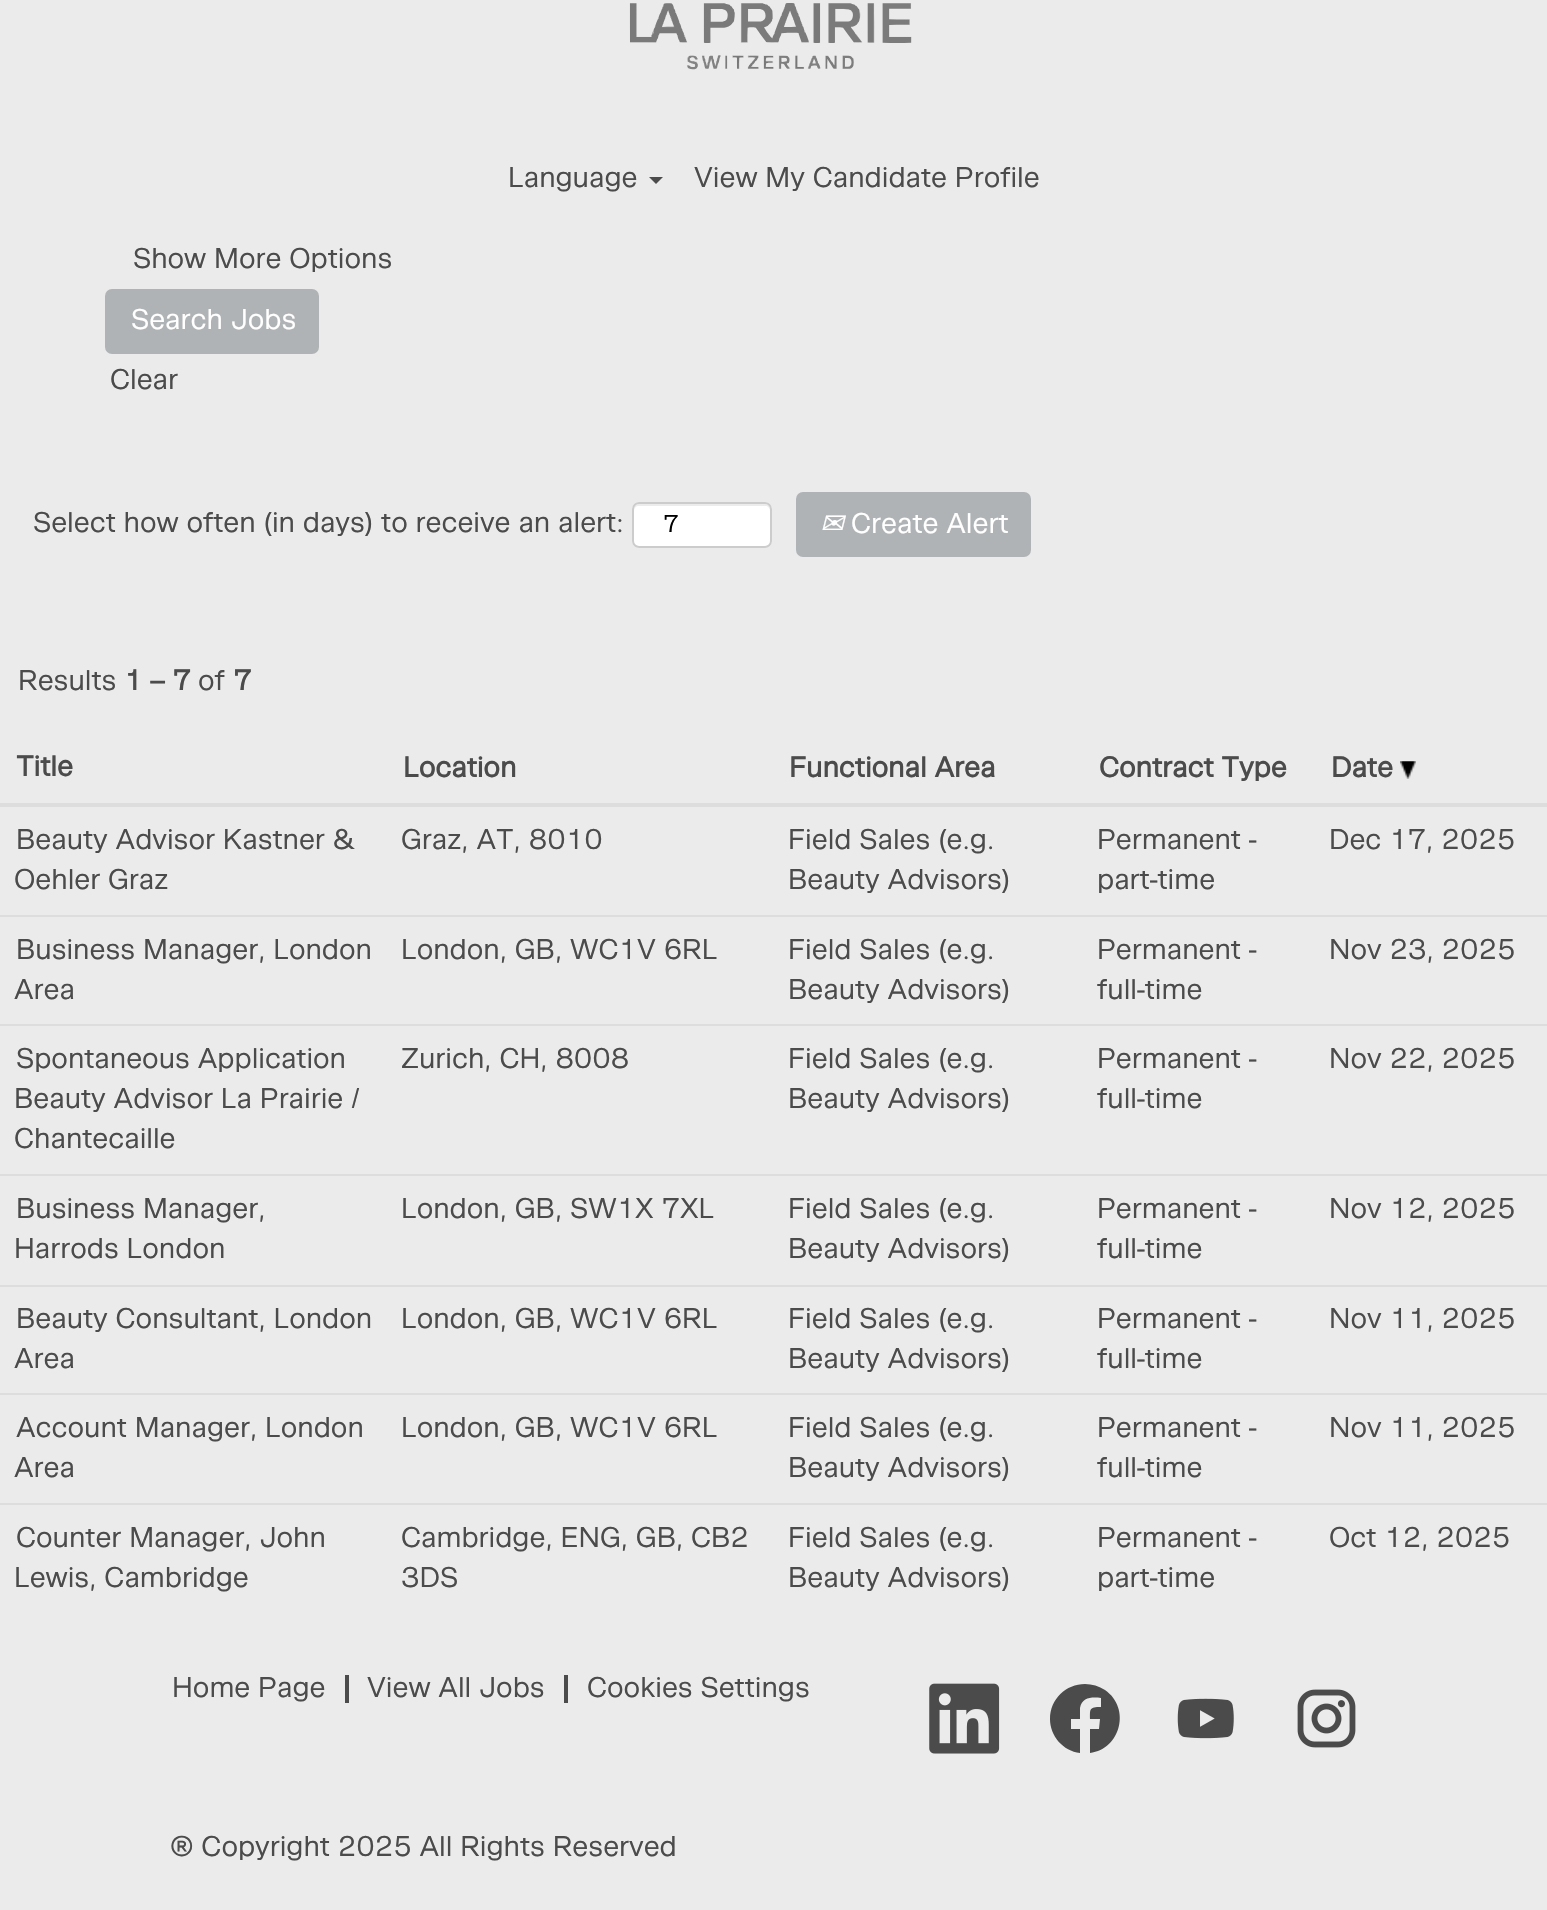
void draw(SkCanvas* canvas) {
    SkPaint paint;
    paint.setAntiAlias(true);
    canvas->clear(0xFFEBEBEB);
    canvas->drawImageRect(SkImages::DeferredFromEncodedData(SkData::MakeFromFileName("img1.png")), SkRect::MakeXYWH(629, 3, 283, 67), SkSamplingOptions());
    SkFont font1(fontMgr->matchFamilyStyle("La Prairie", SkFontStyle(300, SkFontStyle::kNormal_Width, SkFontStyle::kUpright_Slant)), 28);
    font1.setSubpixel(true);
    paint.setColor(0xFF4B4B4B);
    canvas->drawString("Language", 508, 187, font1, paint);
    canvas->drawPath(SkPathBuilder().moveTo(649, 177).lineTo(663, 177).lineTo(656, 184).close().detach(), paint);
    canvas->drawString("View My Candidate Profile", 694, 187, font1, paint);
    canvas->drawString("Show More Options", 133, 268, font1, paint);
    paint.setColor(0xFFB0B3B5);
    canvas->drawRoundRect(SkRect::MakeXYWH(105, 289, 214, 65), 7, 7, paint);
    paint.setColor(0xFFFFFFFF);
    canvas->drawString("Search Jobs", 131, 329, font1, paint);
    paint.setColor(0xFF4B4B4B);
    canvas->drawString("Clear", 110, 389, font1, paint);
    canvas->drawString("Select how often (in days) to receive an alert:", 33, 532, font1, paint);
    paint.setColor(0xFFFFFFFF);
    canvas->drawRoundRect(SkRect::MakeXYWH(632, 502, 140, 46), 7, 7, paint);
    paint.setColor(0xFFECECEC);
    canvas->drawPath(SkPathBuilder().moveTo(639, 506).lineTo(765, 506).cubicTo(768, 506, 770, 508, 770, 511).lineTo(770, 509).cubicTo(770, 506, 768, 504, 765, 504).lineTo(639, 504).cubicTo(636, 504, 634, 506, 634, 509).lineTo(634, 511).cubicTo(634, 508, 636, 506, 639, 506).close().detach(), paint);
    paint.setStyle(SkPaint::kStroke_Style);
    paint.setStrokeWidth(2);
    paint.setColor(0xFFCCCCCC);
    canvas->drawRoundRect(SkRect::MakeXYWH(633, 503, 138, 44), 6, 6, paint);
    SkFont font2(fontMgr->matchFamilyStyle("La Prairie", SkFontStyle(300, SkFontStyle::kNormal_Width, SkFontStyle::kUpright_Slant)), 24);
    font2.setSubpixel(true);
    paint.setStyle(SkPaint::kFill_Style);
    paint.setColor(0xFF000000);
    canvas->drawString("7", 663, 532, font2, paint);
    paint.setColor(0xFFB0B3B5);
    canvas->drawRoundRect(SkRect::MakeXYWH(796, 492, 235, 65), 7, 7, paint);
    SkFont font3(fontMgr->matchFamilyStyle("DejaVu Sans", SkFontStyle::Italic()), 28);
    font3.setSubpixel(true);
    paint.setColor(0xFFFFFFFF);
    canvas->drawString("✉", 820, 533, font3, paint);
    canvas->drawString("Create Alert", 851, 533, font1, paint);
    paint.setColor(0xFF4B4B4B);
    canvas->drawString("Results", 18, 690, font1, paint);
    SkFont font4(fontMgr->matchFamilyStyle("La Prairie", SkFontStyle::Bold()), 28);
    font4.setSubpixel(true);
    canvas->drawString("1 – 7", 124, 690, font4, paint);
    canvas->drawString("of", 198, 690, font1, paint);
    canvas->drawString("7", 233, 690, font4, paint);
    canvas->drawString("Title", 16, 776, font4, paint);
    canvas->drawString("Location", 403, 777, font4, paint);
    canvas->drawString("Functional Area", 789, 777, font4, paint);
    canvas->drawString("Contract Type", 1099, 777, font4, paint);
    paint.setColor(0xFFDDDDDD);
    canvas->drawRect(SkRect::MakeXYWH(0, 803, 1547, 4), paint);
    paint.setColor(0xFF4B4B4B);
    canvas->drawString("Date", 1331, 777, font4, paint);
    canvas->drawImageRect(SkImages::DeferredFromEncodedData(SkData::MakeFromFileName("img2.png")), SkRect::MakeXYWH(1400, 761, 16, 18), SkSamplingOptions());
    canvas->drawString("Beauty Advisor Kastner &", 16, 849, font1, paint);
    canvas->drawString("Oehler Graz", 14, 889, font1, paint);
    canvas->drawString("Graz, AT, 8010", 401, 849, font1, paint);
    canvas->drawString("Field Sales (e.g.", 788, 849, font1, paint);
    canvas->drawString("Beauty Advisors)", 788, 889, font1, paint);
    canvas->drawString("Permanent -", 1097, 849, font1, paint);
    canvas->drawString("part-time", 1097, 889, font1, paint);
    canvas->drawString("Dec 17, 2025", 1329, 849, font1, paint);
    canvas->drawString("Business Manager, London", 16, 959, font1, paint);
    canvas->drawString("Area", 14, 999, font1, paint);
    canvas->drawString("London, GB, WC1V 6RL", 401, 959, font1, paint);
    canvas->drawString("Field Sales (e.g.", 788, 959, font1, paint);
    canvas->drawString("Beauty Advisors)", 788, 999, font1, paint);
    canvas->drawString("Permanent -", 1097, 959, font1, paint);
    canvas->drawString("full-time", 1097, 999, font1, paint);
    paint.setColor(0xFFDDDDDD);
    canvas->drawRect(SkRect::MakeXYWH(0, 915, 1547, 2), paint);
    paint.setColor(0xFF4B4B4B);
    canvas->drawString("Nov 23, 2025", 1329, 959, font1, paint);
    canvas->drawString("Spontaneous Application", 16, 1068, font1, paint);
    canvas->drawString("Beauty Advisor La Prairie /", 14, 1108, font1, paint);
    canvas->drawString("Chantecaille", 14, 1148, font1, paint);
    canvas->drawString("Zurich, CH, 8008", 401, 1068, font1, paint);
    canvas->drawString("Field Sales (e.g.", 788, 1068, font1, paint);
    canvas->drawString("Beauty Advisors)", 788, 1108, font1, paint);
    canvas->drawString("Permanent -", 1097, 1068, font1, paint);
    canvas->drawString("full-time", 1097, 1108, font1, paint);
    paint.setColor(0xFFDDDDDD);
    canvas->drawRect(SkRect::MakeXYWH(0, 1024, 1547, 2), paint);
    paint.setColor(0xFF4B4B4B);
    canvas->drawString("Nov 22, 2025", 1329, 1068, font1, paint);
    canvas->drawString("Business Manager,", 16, 1218, font1, paint);
    canvas->drawString("Harrods London", 14, 1258, font1, paint);
    canvas->drawString("London, GB, SW1X 7XL", 401, 1218, font1, paint);
    canvas->drawString("Field Sales (e.g.", 788, 1218, font1, paint);
    canvas->drawString("Beauty Advisors)", 788, 1258, font1, paint);
    canvas->drawString("Permanent -", 1097, 1218, font1, paint);
    canvas->drawString("full-time", 1097, 1258, font1, paint);
    paint.setColor(0xFFDDDDDD);
    canvas->drawRect(SkRect::MakeXYWH(0, 1174, 1547, 2), paint);
    paint.setColor(0xFF4B4B4B);
    canvas->drawString("Nov 12, 2025", 1329, 1218, font1, paint);
    canvas->drawString("Beauty Consultant, London", 16, 1328, font1, paint);
    canvas->drawString("Area", 14, 1368, font1, paint);
    canvas->drawString("London, GB, WC1V 6RL", 401, 1328, font1, paint);
    canvas->drawString("Field Sales (e.g.", 788, 1328, font1, paint);
    canvas->drawString("Beauty Advisors)", 788, 1368, font1, paint);
    canvas->drawString("Permanent -", 1097, 1328, font1, paint);
    canvas->drawString("full-time", 1097, 1368, font1, paint);
    paint.setColor(0xFFDDDDDD);
    canvas->drawRect(SkRect::MakeXYWH(0, 1285, 1547, 2), paint);
    paint.setColor(0xFF4B4B4B);
    canvas->drawString("Nov 11, 2025", 1329, 1328, font1, paint);
    canvas->drawString("Account Manager, London", 16, 1437, font1, paint);
    canvas->drawString("Area", 14, 1477, font1, paint);
    canvas->drawString("London, GB, WC1V 6RL", 401, 1437, font1, paint);
    canvas->drawString("Field Sales (e.g.", 788, 1437, font1, paint);
    canvas->drawString("Beauty Advisors)", 788, 1477, font1, paint);
    canvas->drawString("Permanent -", 1097, 1437, font1, paint);
    canvas->drawString("full-time", 1097, 1477, font1, paint);
    paint.setColor(0xFFDDDDDD);
    canvas->drawRect(SkRect::MakeXYWH(0, 1393, 1547, 2), paint);
    paint.setColor(0xFF4B4B4B);
    canvas->drawString("Nov 11, 2025", 1329, 1437, font1, paint);
    canvas->drawString("Counter Manager, John", 16, 1547, font1, paint);
    canvas->drawString("Lewis, Cambridge", 14, 1587, font1, paint);
    canvas->drawString("Cambridge, ENG, GB, CB2", 401, 1547, font1, paint);
    canvas->drawString("3DS", 401, 1587, font1, paint);
    canvas->drawString("Field Sales (e.g.", 788, 1547, font1, paint);
    canvas->drawString("Beauty Advisors)", 788, 1587, font1, paint);
    canvas->drawString("Permanent -", 1097, 1547, font1, paint);
    canvas->drawString("part-time", 1097, 1587, font1, paint);
    paint.setColor(0xFFDDDDDD);
    canvas->drawRect(SkRect::MakeXYWH(0, 1503, 1547, 2), paint);
    paint.setColor(0xFF4B4B4B);
    canvas->drawString("Oct 12, 2025", 1329, 1547, font1, paint);
    canvas->drawRect(SkRect::MakeXYWH(345, 1675, 4, 28), paint);
    canvas->drawString("Home Page", 172, 1697, font1, paint);
    canvas->drawRect(SkRect::MakeXYWH(564, 1675, 4, 28), paint);
    canvas->drawString("View All Jobs", 367, 1697, font1, paint);
    canvas->drawString("Cookies Settings", 587, 1697, font1, paint);
    canvas->drawImageRect(SkImages::DeferredFromEncodedData(SkData::MakeFromFileName("img3.png")), SkRect::MakeXYWH(929, 1683, 71, 71), SkSamplingOptions());
    canvas->drawPath(SkPathBuilder().moveTo(1085, 1684).cubicTo(1066, 1684, 1050, 1699, 1050, 1719).cubicTo(1050, 1736, 1063, 1751, 1080, 1753).lineTo(1080, 1729).lineTo(1071, 1729).lineTo(1071, 1719).lineTo(1080, 1719).lineTo(1080, 1708).cubicTo(1082, 1697, 1092, 1697, 1101, 1698).lineTo(1101, 1707).cubicTo(1089, 1707, 1090, 1709, 1090, 1719).lineTo(1100, 1719).lineTo(1099, 1729).lineTo(1090, 1729).lineTo(1090, 1753).cubicTo(1121, 1749, 1131, 1708, 1105, 1690).cubicTo(1099, 1686, 1092, 1684, 1085, 1684).close().detach(), paint);
    canvas->drawImageRect(SkImages::DeferredFromEncodedData(SkData::MakeFromFileName("img4.png")), SkRect::MakeXYWH(1177, 1698, 57, 41), SkSamplingOptions());
    canvas->drawImageRect(SkImages::DeferredFromEncodedData(SkData::MakeFromFileName("img5.png")), SkRect::MakeXYWH(1297, 1689, 59, 59), SkSamplingOptions());
    canvas->drawString("© Copyright 2025 All Rights Reserved", 170, 1856, font1, paint);
}
